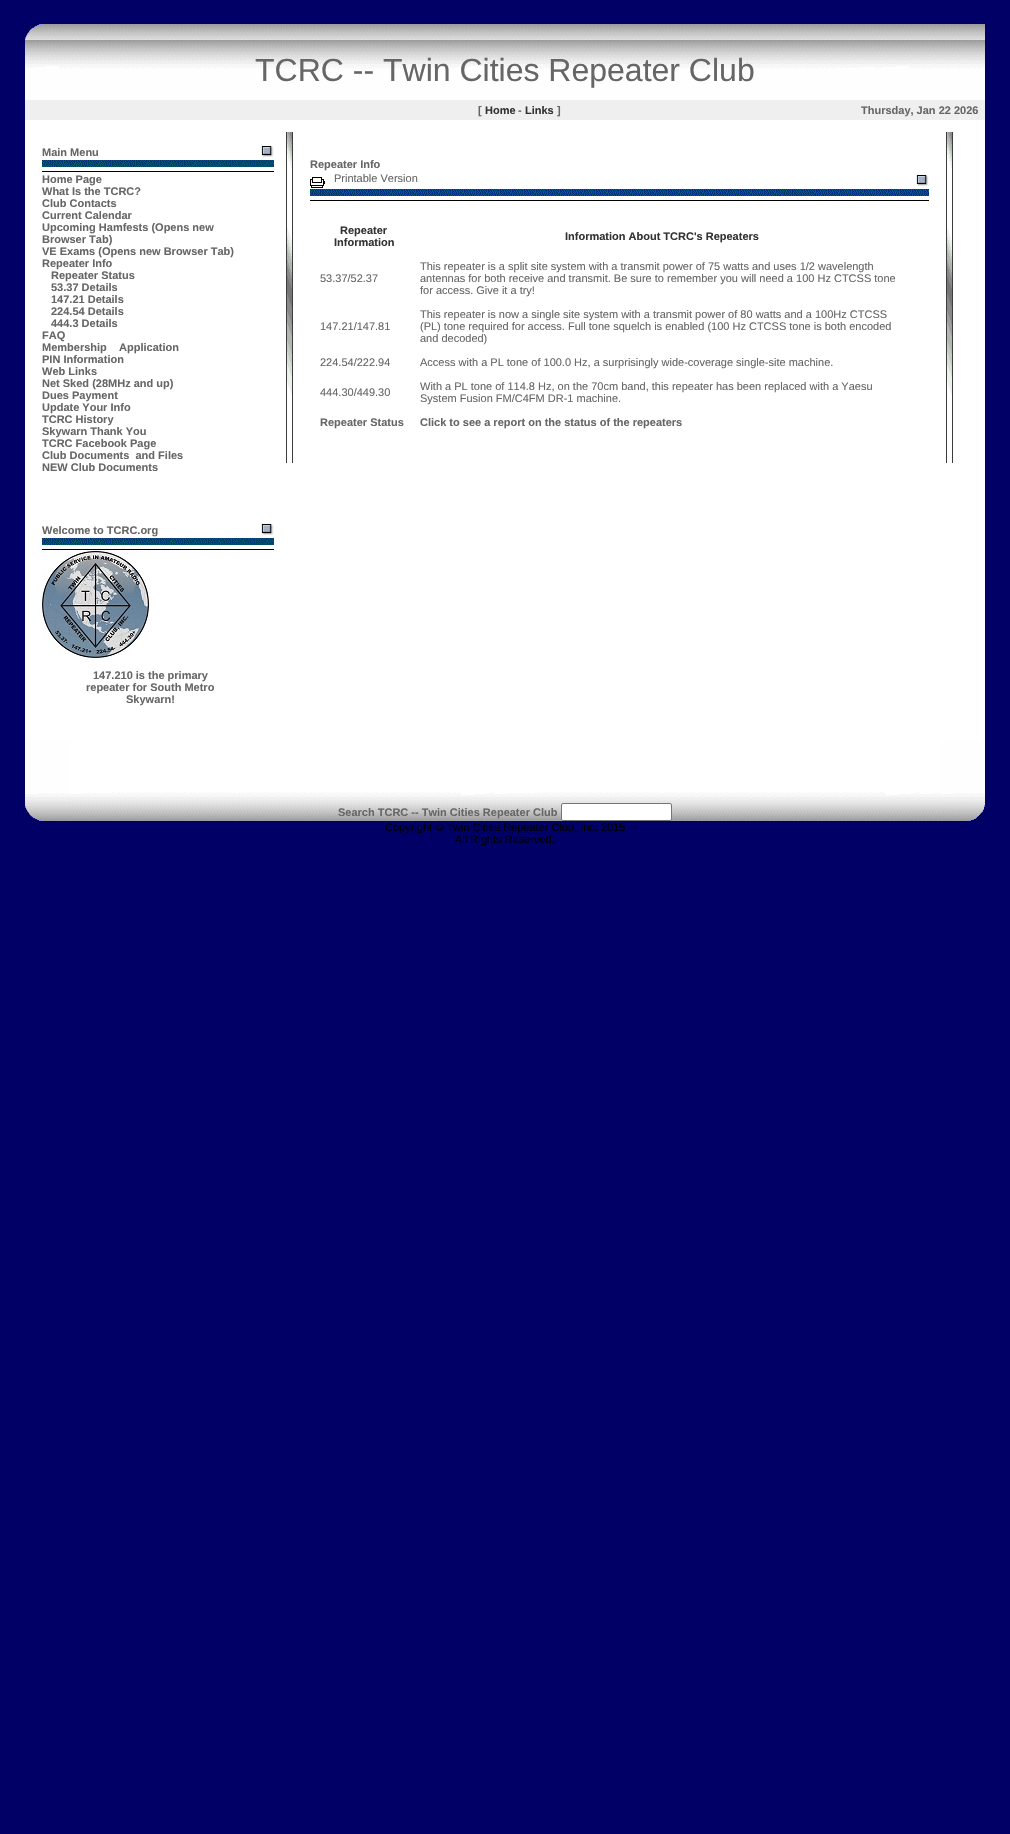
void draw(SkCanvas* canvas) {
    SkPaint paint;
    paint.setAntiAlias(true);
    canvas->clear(0xFF000066);
    paint.setColor(0xFFFEFEFE);
    canvas->drawRect(SkRect::MakeXYWH(25, 69, 960, 31), paint);
    canvas->drawImageRect(SkImages::DeferredFromEncodedData(SkData::MakeFromFileName("img1.png")), SkRect::MakeXYWH(25, 24, 960, 16), SkSamplingOptions());
    canvas->drawImageRect(SkImages::DeferredFromEncodedData(SkData::MakeFromFileName("img2.png")), SkRect::MakeXYWH(25, 24, 16, 16), SkSamplingOptions());
    canvas->drawImageRect(SkImages::DeferredFromEncodedData(SkData::MakeFromFileName("img3.png")), SkRect::MakeXYWH(25, 40, 960, 29), SkSamplingOptions());
    SkFont font1(fontMgr->matchFamilyStyle("Liberation Sans", SkFontStyle::Normal()), 32);
    font1.setSubpixel(true);
    paint.setColor(0xFF666666);
    canvas->drawString("TCRC -- Twin Cities Repeater Club", 255, 81, font1, paint);
    paint.setColor(0xFFEFEFEF);
    canvas->drawRect(SkRect::MakeXYWH(25, 100, 960, 20), paint);
    SkFont font2(fontMgr->matchFamilyStyle("Liberation Sans", SkFontStyle::Bold()), 11);
    font2.setSubpixel(true);
    paint.setColor(0xFF666666);
    canvas->drawString("[", 478, 114, font2, paint);
    paint.setColor(0xFF333333);
    canvas->drawString("Home", 485, 114, font2, paint);
    paint.setColor(0xFF666666);
    canvas->drawString("-", 518, 114, font2, paint);
    paint.setColor(0xFF333333);
    canvas->drawString("Links", 525, 114, font2, paint);
    paint.setColor(0xFF666666);
    canvas->drawString("]", 557, 114, font2, paint);
    canvas->drawString("Thursday, Jan 22 2026", 861, 114, font2, paint);
    paint.setColor(0xFFFFFFFF);
    canvas->drawRect(SkRect::MakeXYWH(25, 120, 960, 621), paint);
    paint.setColor(0xFF666666);
    canvas->drawString("Main Menu", 42, 156, font2, paint);
    canvas->drawImageRect(SkImages::DeferredFromEncodedData(SkData::MakeFromFileName("img4.png")), SkRect::MakeXYWH(261, 146, 13, 11), SkSamplingOptions());
    canvas->drawImageRect(SkImages::DeferredFromEncodedData(SkData::MakeFromFileName("img5.png")), SkRect::MakeXYWH(42, 160, 232, 12), SkSamplingOptions());
    canvas->drawString("Home Page", 42, 183, font2, paint);
    canvas->drawString("What Is the TCRC?", 42, 195, font2, paint);
    canvas->drawString("Club Contacts", 42, 207, font2, paint);
    canvas->drawString("Current Calendar", 42, 219, font2, paint);
    canvas->drawString("Upcoming Hamfests (Opens new", 42, 231, font2, paint);
    canvas->drawString("Browser Tab)", 42, 243, font2, paint);
    canvas->drawString("VE Exams (Opens new Browser Tab)", 42, 255, font2, paint);
    canvas->drawString("Repeater Info", 42, 267, font2, paint);
    canvas->drawString("Repeater Status", 51, 279, font2, paint);
    canvas->drawString("53.37 Details", 51, 291, font2, paint);
    canvas->drawString("147.21 Details", 51, 303, font2, paint);
    canvas->drawString("224.54 Details", 51, 315, font2, paint);
    canvas->drawString("444.3 Details", 51, 327, font2, paint);
    canvas->drawString("FAQ", 42, 339, font2, paint);
    canvas->drawString("Membership    Application", 42, 351, font2, paint);
    canvas->drawString("PIN Information", 42, 363, font2, paint);
    canvas->drawString("Web Links", 42, 375, font2, paint);
    canvas->drawString("Net Sked (28MHz and up)", 42, 387, font2, paint);
    canvas->drawString("Dues Payment", 42, 399, font2, paint);
    canvas->drawString("Update Your Info", 42, 411, font2, paint);
    canvas->drawString("TCRC History", 42, 423, font2, paint);
    canvas->drawString("Skywarn Thank You", 42, 435, font2, paint);
    canvas->drawString("TCRC Facebook Page", 42, 447, font2, paint);
    canvas->drawString("Club Documents  and Files", 42, 459, font2, paint);
    canvas->drawString("NEW Club Documents", 42, 471, font2, paint);
    canvas->drawString("Welcome to TCRC.org", 42, 534, font2, paint);
    canvas->drawImageRect(SkImages::DeferredFromEncodedData(SkData::MakeFromFileName("img4.png")), SkRect::MakeXYWH(261, 524, 13, 11), SkSamplingOptions());
    canvas->drawImageRect(SkImages::DeferredFromEncodedData(SkData::MakeFromFileName("img5.png")), SkRect::MakeXYWH(42, 538, 232, 12), SkSamplingOptions());
    canvas->drawImageRect(SkImages::DeferredFromEncodedData(SkData::MakeFromFileName("img6.png")), SkRect::MakeXYWH(42, 551, 107, 107), SkSamplingOptions());
    canvas->drawString("147.210 is the primary", 93, 679, font2, paint);
    canvas->drawString("repeater for South Metro", 86, 691, font2, paint);
    canvas->drawString("Skywarn!", 126, 703, font2, paint);
    canvas->drawImageRect(SkImages::DeferredFromEncodedData(SkData::MakeFromFileName("img7.png")), SkRect::MakeXYWH(286, 132, 7, 331), SkSamplingOptions());
    canvas->drawString("Repeater Info", 310, 168, font2, paint);
    canvas->drawImageRect(SkImages::DeferredFromEncodedData(SkData::MakeFromFileName("img8.png")), SkRect::MakeXYWH(310, 177, 15, 11), SkSamplingOptions());
    SkFont font3(fontMgr->matchFamilyStyle("Liberation Sans", SkFontStyle::Normal()), 11);
    font3.setSubpixel(true);
    canvas->drawString("Printable Version", 334, 182, font3, paint);
    canvas->drawImageRect(SkImages::DeferredFromEncodedData(SkData::MakeFromFileName("img4.png")), SkRect::MakeXYWH(916, 175, 13, 11), SkSamplingOptions());
    canvas->drawImageRect(SkImages::DeferredFromEncodedData(SkData::MakeFromFileName("img9.png")), SkRect::MakeXYWH(310, 189, 619, 12), SkSamplingOptions());
    paint.setColor(0xFF333333);
    canvas->drawString("Repeater", 340, 234, font2, paint);
    canvas->drawString("Information", 334, 246, font2, paint);
    canvas->drawString("Information About TCRC's Repeaters", 565, 240, font2, paint);
    paint.setColor(0xFF666666);
    canvas->drawString("53.37/52.37", 320, 282, font3, paint);
    canvas->drawString("This repeater is a split site system with a transmit power of 75 watts and uses 1/2 wavelength", 420, 270, font3, paint);
    canvas->drawString("antennas for both receive and transmit. Be sure to remember you will need a 100 Hz CTCSS tone", 420, 282, font3, paint);
    canvas->drawString("for access. Give it a try!", 420, 294, font3, paint);
    canvas->drawString("147.21/147.81", 320, 330, font3, paint);
    canvas->drawString("This repeater is now a single site system with a transmit power of 80 watts and a 100Hz CTCSS", 420, 318, font3, paint);
    canvas->drawString("(PL) tone required for access. Full tone squelch is enabled (100 Hz CTCSS tone is both encoded", 420, 330, font3, paint);
    canvas->drawString("and decoded)", 420, 342, font3, paint);
    canvas->drawString("224.54/222.94", 320, 366, font3, paint);
    canvas->drawString("Access with a PL tone of 100.0 Hz, a surprisingly wide-coverage single-site machine.", 420, 366, font3, paint);
    canvas->drawString("444.30/449.30", 320, 396, font3, paint);
    canvas->drawString("With a PL tone of 114.8 Hz, on the 70cm band, this repeater has been replaced with a Yaesu", 420, 390, font3, paint);
    canvas->drawString("System Fusion FM/C4FM DR-1 machine.", 420, 402, font3, paint);
    canvas->drawString("Repeater Status", 320, 426, font2, paint);
    canvas->drawString("Click to see a report on the status of the repeaters", 420, 426, font2, paint);
    canvas->drawImageRect(SkImages::DeferredFromEncodedData(SkData::MakeFromFileName("img7.png")), SkRect::MakeXYWH(946, 132, 7, 331), SkSamplingOptions());
    paint.setColor(0xFFFEFEFE);
    canvas->drawRect(SkRect::MakeXYWH(25, 741, 45, 52), paint);
    canvas->drawImageRect(SkImages::DeferredFromEncodedData(SkData::MakeFromFileName("img10.png")), SkRect::MakeXYWH(25, 793, 45, 28), SkSamplingOptions());
    canvas->drawImageRect(SkImages::DeferredFromEncodedData(SkData::MakeFromFileName("img11.png")), SkRect::MakeXYWH(25, 806, 16, 15), SkSamplingOptions());
    canvas->drawImageRect(SkImages::DeferredFromEncodedData(SkData::MakeFromFileName("img12.png")), SkRect::MakeXYWH(70, 741, 870, 80), SkSamplingOptions());
    paint.setColor(0xFF666666);
    canvas->drawString("Search TCRC -- Twin Cities Repeater Club", 338, 816, font2, paint);
    paint.setColor(0xFFFFFFFF);
    canvas->drawRoundRect(SkRect::MakeXYWH(561.5f, 803.5f, 110, 17), 1.5f, 1.5f, paint);
    paint.setStyle(SkPaint::kStroke_Style);
    paint.setStrokeWidth(1);
    paint.setColor(0xFF767676);
    canvas->drawRoundRect(SkRect::MakeXYWH(561.5f, 803.5f, 110, 17), 1.5f, 1.5f, paint);
    paint.setStyle(SkPaint::kFill_Style);
    paint.setColor(0xFFFEFEFE);
    canvas->drawRect(SkRect::MakeXYWH(940, 741, 45, 52), paint);
    canvas->drawImageRect(SkImages::DeferredFromEncodedData(SkData::MakeFromFileName("img13.png")), SkRect::MakeXYWH(940, 793, 45, 28), SkSamplingOptions());
    canvas->drawImageRect(SkImages::DeferredFromEncodedData(SkData::MakeFromFileName("img14.png")), SkRect::MakeXYWH(969, 805, 16, 16), SkSamplingOptions());
    paint.setColor(0xFF000000);
    canvas->drawString("Copyright © Twin Cities Repeater Club, Inc. 2015", 385, 831, font3, paint);
    canvas->drawString("All Rights Reserved.", 455, 843, font3, paint);
}
